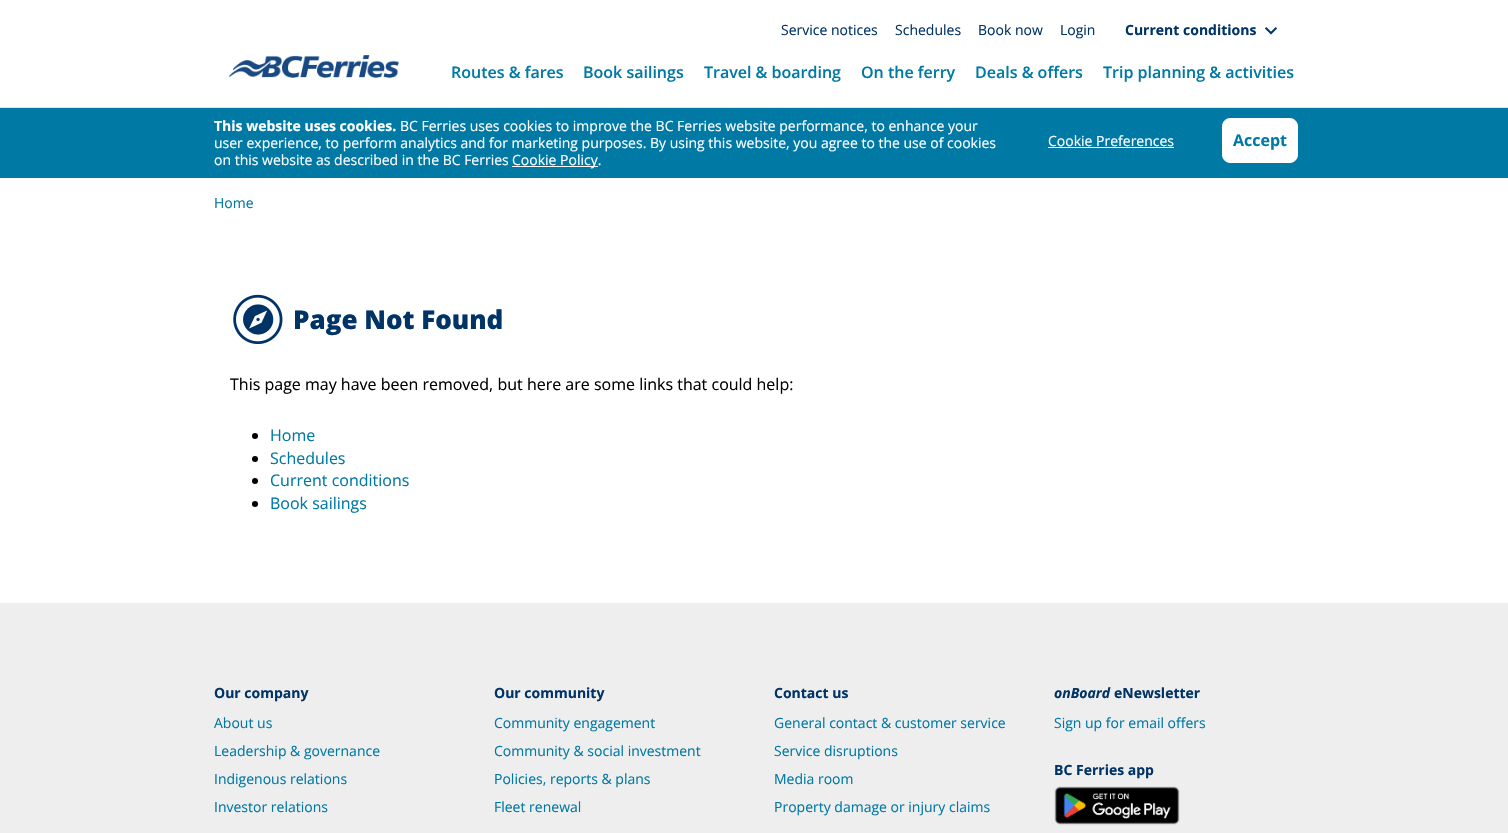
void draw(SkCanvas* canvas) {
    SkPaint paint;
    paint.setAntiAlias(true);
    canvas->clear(0xFFFFFFFF);
    paint.setColor(0xFFE4E4E4);
    canvas->drawRect(SkRect::MakeXYWH(0, 107, 1508, 1), paint);
    canvas->drawImageRect(SkImages::DeferredFromEncodedData(SkData::MakeFromFileName("img1.png")), SkRect::MakeXYWH(229, 55, 170, 23), SkSamplingOptions());
    SkFont font1(fontMgr->matchFamilyStyle("Open Sans", SkFontStyle::Normal()), 14);
    font1.setSubpixel(true);
    paint.setColor(0xFF003366);
    canvas->drawString("Service notices", 781, 35, font1, paint);
    canvas->drawString("Schedules", 895, 35, font1, paint);
    canvas->drawString("Book now", 978, 35, font1, paint);
    canvas->drawString("Login", 1060, 35, font1, paint);
    SkFont font2(fontMgr->matchFamilyStyle("Open Sans", SkFontStyle::Bold()), 14);
    font2.setSubpixel(true);
    canvas->drawString("Current conditions", 1125, 35, font2, paint);
    canvas->drawImageRect(SkImages::DeferredFromEncodedData(SkData::MakeFromFileName("img2.png")), SkRect::MakeXYWH(1265, 27, 12, 8), SkSamplingOptions());
    SkFont font3(fontMgr->matchFamilyStyle("Open Sans", SkFontStyle(600, SkFontStyle::kNormal_Width, SkFontStyle::kUpright_Slant)), 16);
    font3.setSubpixel(true);
    paint.setColor(0xFF0079A5);
    canvas->drawString("Routes & fares", 451, 78, font3, paint);
    canvas->drawString("Book sailings", 583, 78, font3, paint);
    canvas->drawString("Travel & boarding", 704, 78, font3, paint);
    canvas->drawString("On the ferry", 861, 78, font3, paint);
    canvas->drawString("Deals & offers", 975, 78, font3, paint);
    canvas->drawString("Trip planning & activities", 1103, 78, font3, paint);
    canvas->drawRect(SkRect::MakeXYWH(0, 108, 1508, 70), paint);
    paint.setColor(0xFFFFFFFF);
    canvas->drawString("This website uses cookies.", 214, 131, font2, paint);
    canvas->drawString("BC Ferries uses cookies to improve the BC Ferries website performance, to enhance your", 400, 131, font1, paint);
    canvas->drawString("user experience, to perform analytics and for marketing purposes. By using this website, you agree to the use of cookies", 214, 148, font1, paint);
    canvas->drawString("on this website as described in the BC Ferries", 214, 165, font1, paint);
    canvas->drawRect(SkRect::MakeXYWH(512, 166, 86, 1), paint);
    canvas->drawString("Cookie Policy.", 512, 165, font1, paint);
    canvas->drawString("Cookie Preferences", 1048, 146, font1, paint);
    canvas->drawRect(SkRect::MakeXYWH(1048, 147, 126, 1), paint);
    canvas->drawRoundRect(SkRect::MakeXYWH(1222.5f, 118.5f, 75, 44), 7.5f, 7.5f, paint);
    paint.setStyle(SkPaint::kStroke_Style);
    paint.setStrokeWidth(1);
    canvas->drawRoundRect(SkRect::MakeXYWH(1222.5f, 118.5f, 75, 44), 7.5f, 7.5f, paint);
    SkFont font4(fontMgr->matchFamilyStyle("Open Sans", SkFontStyle::Bold()), 16);
    font4.setSubpixel(true);
    paint.setStyle(SkPaint::kFill_Style);
    paint.setColor(0xFF0079A5);
    canvas->drawString("Accept", 1233, 146, font4, paint);
    canvas->drawString("Home", 214, 208, font1, paint);
    canvas->drawImageRect(SkImages::DeferredFromEncodedData(SkData::MakeFromFileName("img3.png")), SkRect::MakeXYWH(233, 294, 50, 51), SkSamplingOptions());
    SkFont font5(fontMgr->matchFamilyStyle("Open Sans", SkFontStyle(800, SkFontStyle::kNormal_Width, SkFontStyle::kUpright_Slant)), 26);
    font5.setSubpixel(true);
    paint.setColor(0xFF003366);
    canvas->drawString("Page Not Found", 293, 329, font5, paint);
    SkFont font6(fontMgr->matchFamilyStyle("Open Sans", SkFontStyle::Normal()), 16);
    font6.setSubpixel(true);
    paint.setColor(0xFF000000);
    canvas->drawString("This page may have been removed, but here are some links that could help:", 230, 390, font6, paint);
    canvas->drawCircle(255, 436, 3, paint);
    paint.setColor(0xFF0079A5);
    canvas->drawString("Home", 270, 441, font6, paint);
    paint.setColor(0xFF000000);
    canvas->drawCircle(255, 459, 3, paint);
    paint.setColor(0xFF0079A5);
    canvas->drawString("Schedules", 270, 464, font6, paint);
    paint.setColor(0xFF000000);
    canvas->drawCircle(255, 481, 3, paint);
    paint.setColor(0xFF0079A5);
    canvas->drawString("Current conditions", 270, 486, font6, paint);
    paint.setColor(0xFF000000);
    canvas->drawCircle(255, 504, 3, paint);
    paint.setColor(0xFF0079A5);
    canvas->drawString("Book sailings", 270, 509, font6, paint);
    paint.setColor(0xFFEEEEEE);
    canvas->drawRect(SkRect::MakeXYWH(0, 603, 1508, 230), paint);
    paint.setColor(0xFF003366);
    canvas->drawString("Our company", 214, 698, font2, paint);
    paint.setColor(0xFF0079A5);
    canvas->drawString("About us", 214, 728, font1, paint);
    canvas->drawString("Leadership & governance", 214, 756, font1, paint);
    canvas->drawString("Indigenous relations", 214, 784, font1, paint);
    canvas->drawString("Investor relations", 214, 812, font1, paint);
    paint.setColor(0xFF003366);
    canvas->drawString("Our community", 494, 698, font2, paint);
    paint.setColor(0xFF0079A5);
    canvas->drawString("Community engagement", 494, 728, font1, paint);
    canvas->drawString("Community & social investment", 494, 756, font1, paint);
    canvas->drawString("Policies, reports & plans", 494, 784, font1, paint);
    canvas->drawString("Fleet renewal", 494, 812, font1, paint);
    paint.setColor(0xFF003366);
    canvas->drawString("Contact us", 774, 698, font2, paint);
    paint.setColor(0xFF0079A5);
    canvas->drawString("General contact & customer service", 774, 728, font1, paint);
    canvas->drawString("Service disruptions", 774, 756, font1, paint);
    canvas->drawString("Media room", 774, 784, font1, paint);
    canvas->drawString("Property damage or injury claims", 774, 812, font1, paint);
    SkFont font7(fontMgr->matchFamilyStyle("Open Sans", SkFontStyle::BoldItalic()), 14);
    font7.setSubpixel(true);
    paint.setColor(0xFF003366);
    canvas->drawString("onBoard", 1054, 698, font7, paint);
    canvas->drawString("eNewsletter", 1114, 698, font2, paint);
    paint.setColor(0xFF0079A5);
    canvas->drawString("Sign up for email offers", 1054, 728, font1, paint);
    paint.setColor(0xFF003366);
    canvas->drawString("BC Ferries app", 1054, 775, font2, paint);
    canvas->drawImageRect(SkImages::DeferredFromEncodedData(SkData::MakeFromFileName("img4.png")), SkRect::MakeXYWH(1054, 786, 126, 39), SkSamplingOptions());
}
